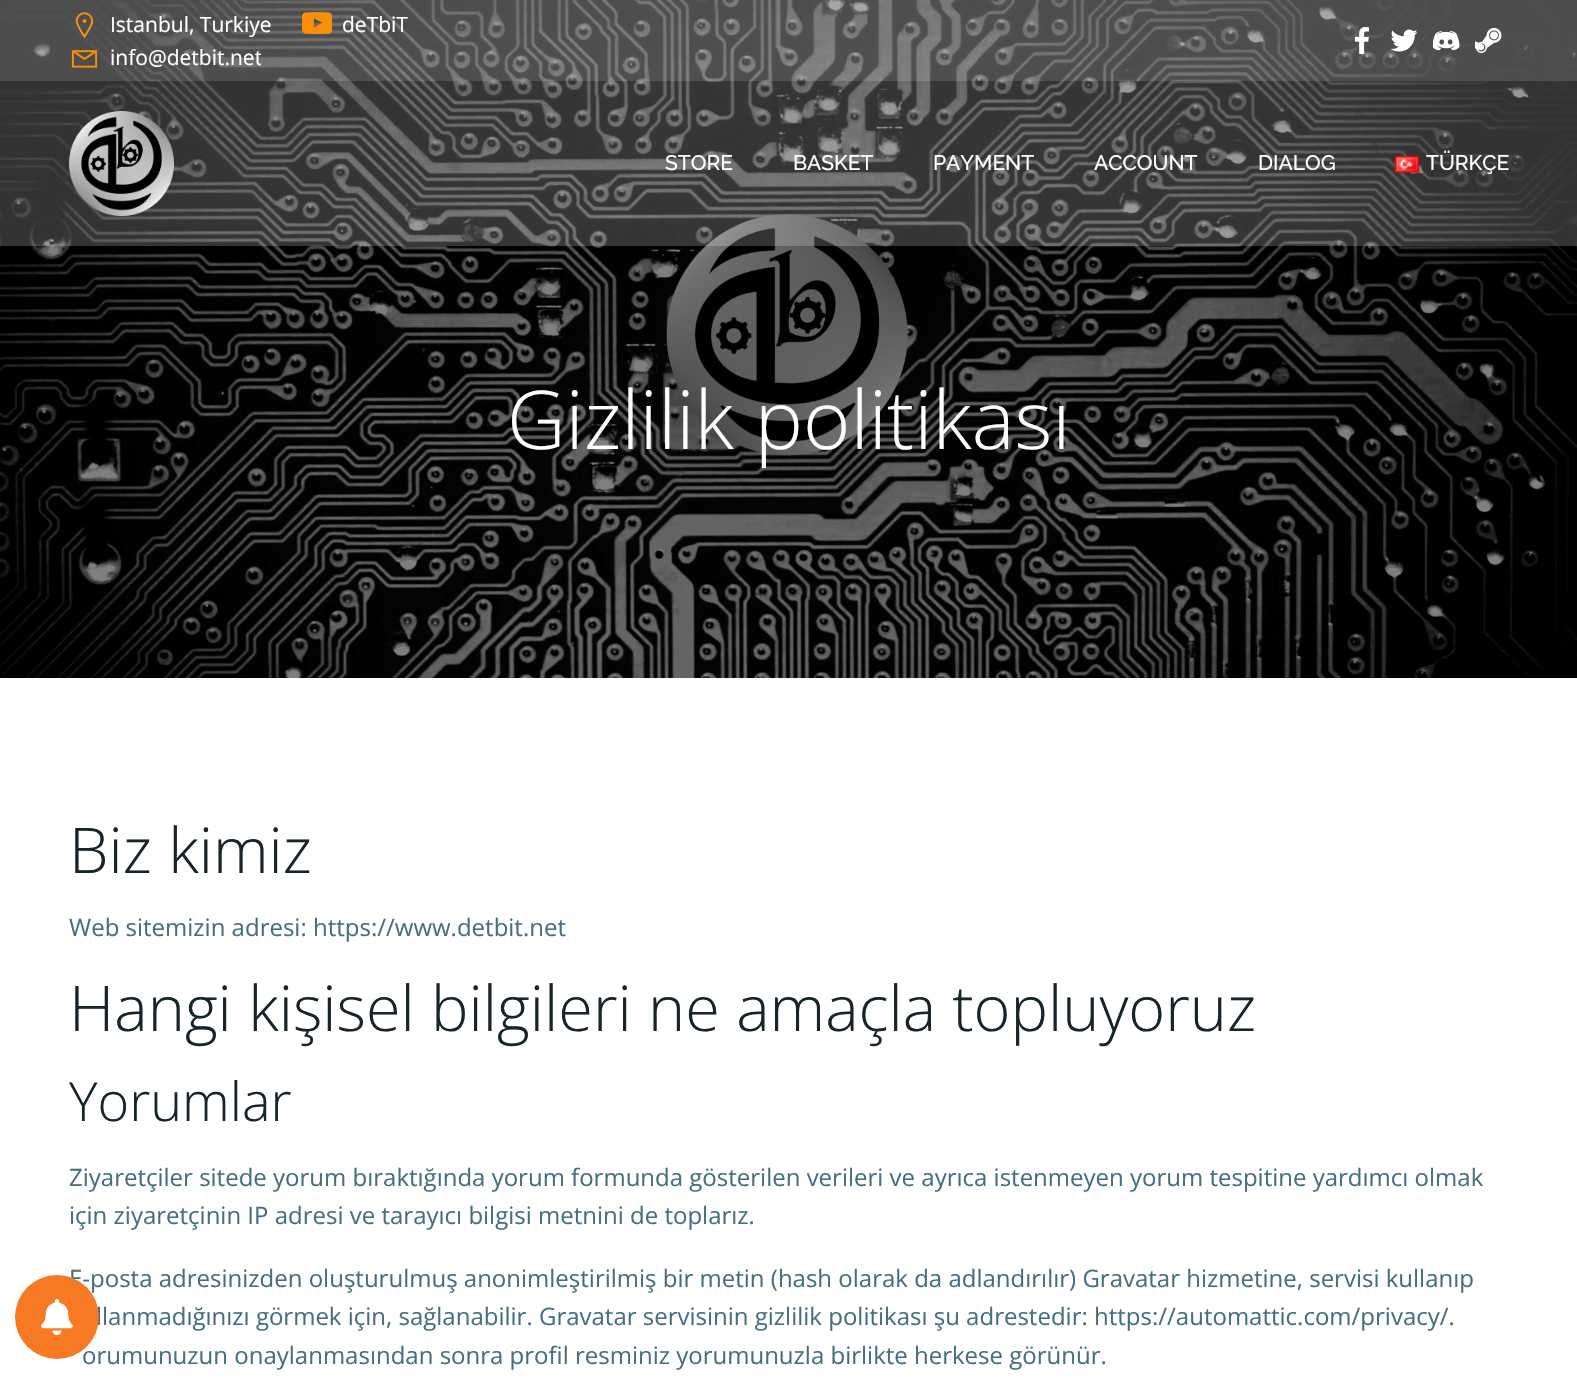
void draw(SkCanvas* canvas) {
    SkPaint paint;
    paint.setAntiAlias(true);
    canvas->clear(0xFFFFFFFF);
    SkFont font1(fontMgr->matchFamilyStyle("Open Sans", SkFontStyle::Normal()), 24);
    font1.setSubpixel(true);
    paint.setColor(0xFF46707F);
    canvas->drawString("E-posta adresinizden oluşturulmuş anonimleştirilmiş bir metin (hash olarak da adlandırılır) Gravatar hizmetine, servisi kullanıp", 69, 1287, font1, paint);
    canvas->drawString("llanmadığınızı görmek için, sağlanabilir. Gravatar servisinin gizlilik politikası şu adrestedir: https://automattic.com/privacy/.", 96, 1325, font1, paint);
    canvas->drawString("orumunuzun onaylanmasından sonra profil resminiz yorumunuzla birlikte herkese görünür.", 82, 1364, font1, paint);
    paint.setColor(0xFFF77924);
    canvas->drawCircle(57, 1317, 42, paint);
    canvas->drawImageRect(SkImages::DeferredFromEncodedData(SkData::MakeFromFileName("img1.png")), SkRect::MakeXYWH(41, 1299, 32, 36), SkSamplingOptions());
    canvas->drawImageRect(SkImages::DeferredFromEncodedData(SkData::MakeFromFileName("img11.png")), SkRect::MakeXYWH(0, 0, 1577, 678), SkSamplingOptions());
    paint.setColor(0x4DFFFFFF);
    canvas->drawRect(SkRect::MakeXYWH(0, 0, 1577, 81), paint);
    canvas->drawImageRect(SkImages::DeferredFromEncodedData(SkData::MakeFromFileName("img2.png")), SkRect::MakeXYWH(75, 12, 19, 27), SkSamplingOptions());
    SkFont font2(fontMgr->matchFamilyStyle("Open Sans", SkFontStyle::Normal()), 21);
    font2.setSubpixel(true);
    paint.setColor(0xFFFFFFFF);
    canvas->drawString("Istanbul, Turkiye", 110, 32, font2, paint);
    canvas->drawImageRect(SkImages::DeferredFromEncodedData(SkData::MakeFromFileName("img3.png")), SkRect::MakeXYWH(302, 12, 30, 23), SkSamplingOptions());
    canvas->drawString("deTbiT", 342, 32, font2, paint);
    canvas->drawImageRect(SkImages::DeferredFromEncodedData(SkData::MakeFromFileName("img4.png")), SkRect::MakeXYWH(71, 50, 27, 18), SkSamplingOptions());
    canvas->save();
    canvas->clipRect(SkRect::MakeXYWH(110, 44, 151, 28));
    canvas->drawString("info@detbit.net", 110, 65, font2, paint);
    canvas->restore();
    canvas->drawImageRect(SkImages::DeferredFromEncodedData(SkData::MakeFromFileName("img5.png")), SkRect::MakeXYWH(1355, 27, 14, 27), SkSamplingOptions());
    canvas->drawImageRect(SkImages::DeferredFromEncodedData(SkData::MakeFromFileName("img6.png")), SkRect::MakeXYWH(1391, 29, 27, 23), SkSamplingOptions());
    canvas->drawImageRect(SkImages::DeferredFromEncodedData(SkData::MakeFromFileName("img7.png")), SkRect::MakeXYWH(1433, 30, 27, 21), SkSamplingOptions());
    canvas->drawImageRect(SkImages::DeferredFromEncodedData(SkData::MakeFromFileName("img8.png")), SkRect::MakeXYWH(1475, 28, 27, 25), SkSamplingOptions());
    paint.setColor(0x33FFFFFF);
    canvas->drawRect(SkRect::MakeXYWH(0, 81, 1577, 165), paint);
    canvas->drawImageRect(SkImages::DeferredFromEncodedData(SkData::MakeFromFileName("img9.png")), SkRect::MakeXYWH(69, 111, 105, 105), SkSamplingOptions());
    SkFont font3(fontMgr->matchFamilyStyle("Raleway", SkFontStyle(500, SkFontStyle::kNormal_Width, SkFontStyle::kUpright_Slant)), 21);
    font3.setSubpixel(true);
    paint.setColor(0xFFFFFFFF);
    canvas->drawString("STORE", 665, 170, font3, paint);
    canvas->drawString("BASKET", 793, 170, font3, paint);
    canvas->drawString("PAYMENT", 933, 170, font3, paint);
    canvas->drawString("ACCOUNT", 1094, 170, font3, paint);
    canvas->drawString("DIALOG", 1258, 170, font3, paint);
    canvas->drawImageRect(SkImages::DeferredFromEncodedData(SkData::MakeFromFileName("img10.png")), SkRect::MakeXYWH(1395, 155, 25, 18), SkSamplingOptions());
    canvas->drawString("TÜRKÇE", 1426, 170, font3, paint);
    SkFont font4(fontMgr->matchFamilyStyle("Open Sans", SkFontStyle(300, SkFontStyle::kNormal_Width, SkFontStyle::kUpright_Slant)), 81);
    font4.setSubpixel(true);
    canvas->drawString("Gizlilik politikası", 507, 449, font4, paint);
    SkFont font5(fontMgr->matchFamilyStyle("Open Sans", SkFontStyle(300, SkFontStyle::kNormal_Width, SkFontStyle::kUpright_Slant)), 63);
    font5.setSubpixel(true);
    paint.setColor(0xFF17252A);
    canvas->drawString("Biz kimiz", 69, 873, font5, paint);
    paint.setColor(0xFF46707F);
    canvas->drawString("Web sitemizin adresi: https://www.detbit.net", 69, 936, font1, paint);
    paint.setColor(0xFF17252A);
    canvas->drawString("Hangi kişisel bilgileri ne amaçla topluyoruz", 69, 1031, font5, paint);
    SkFont font6(fontMgr->matchFamilyStyle("Open Sans", SkFontStyle(300, SkFontStyle::kNormal_Width, SkFontStyle::kUpright_Slant)), 54);
    font6.setSubpixel(true);
    canvas->drawString("Yorumlar", 69, 1121, font6, paint);
    paint.setColor(0xFF46707F);
    canvas->drawString("Ziyaretçiler sitede yorum bıraktığında yorum formunda gösterilen verileri ve ayrıca istenmeyen yorum tespitine yardımcı olmak", 69, 1186, font1, paint);
    canvas->drawString("için ziyaretçinin IP adresi ve tarayıcı bilgisi metnini de toplarız.", 69, 1224, font1, paint);
}
